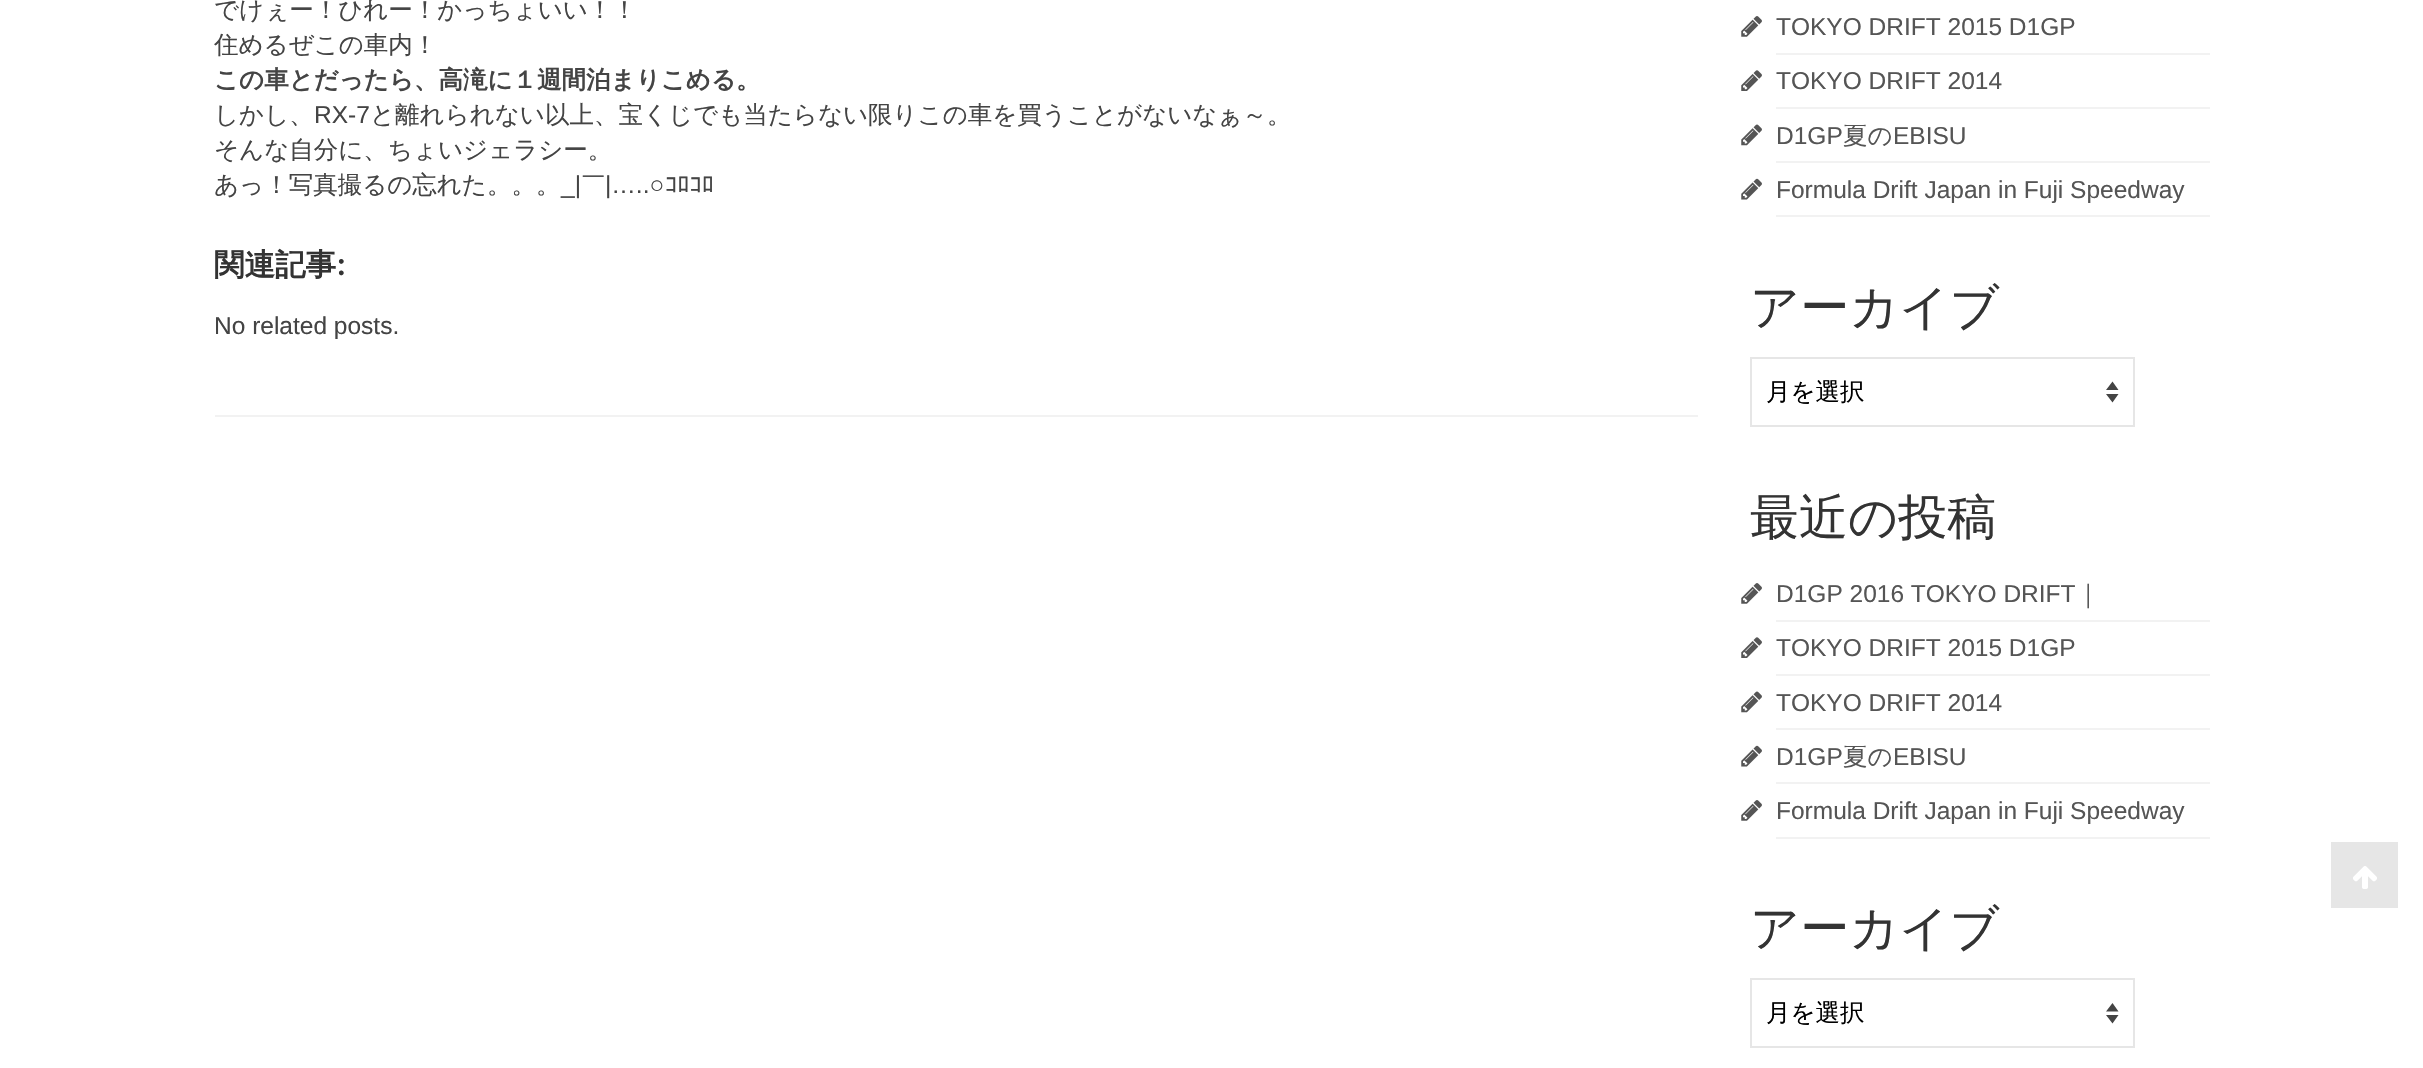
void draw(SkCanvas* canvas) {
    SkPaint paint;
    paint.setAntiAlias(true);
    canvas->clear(0xFFFFFFFF);
    SkFont font1(fontMgr->matchFamilyStyle("WenQuanYi Zen Hei", SkFontStyle(500, SkFontStyle::kNormal_Width, SkFontStyle::kUpright_Slant)), 24.5f);
    font1.setSubpixel(true);
    paint.setColor(0xFF444444);
    canvas->drawString("でけぇー！ひれー！かっちょいい！！", 214, 18, font1, paint);
    canvas->drawString("住めるぜこの車内！", 214, 53, font1, paint);
    SkFont font2(fontMgr->matchFamilyStyle("WenQuanYi Zen Hei", SkFontStyle::Bold()), 24.5f);
    font2.setSubpixel(true);
    canvas->drawString("この車とだったら、高滝に１週間泊まりこめる。", 214, 88, font2, paint);
    canvas->drawString("しかし、", 214, 123, font1, paint);
    SkFont font3(fontMgr->matchFamilyStyle("Liberation Sans", SkFontStyle::Normal()), 24.5f);
    font3.setSubpixel(true);
    canvas->drawString("RX-7", 314, 123, font3, paint);
    canvas->drawString("と離れられない以上、宝くじでも当たらない限りこの車を買うことがないなぁ～。", 370, 123, font1, paint);
    canvas->drawString("そんな自分に、ちょいジェラシー。", 214, 158, font1, paint);
    canvas->drawString("あっ！写真撮るの忘れた。。。", 214, 193, font1, paint);
    canvas->drawString("_|", 561, 193, font3, paint);
    canvas->drawString("￣", 581, 193, font1, paint);
    canvas->drawString("|…..○", 605, 193, font3, paint);
    SkFont font4(fontMgr->matchFamilyStyle("IPAPGothic", SkFontStyle::Normal()), 24.5f);
    font4.setSubpixel(true);
    canvas->drawString("ｺﾛｺﾛ", 665, 193, font4, paint);
    SkFont font5(fontMgr->matchFamilyStyle("WenQuanYi Zen Hei", SkFontStyle::Bold()), 30.5f);
    font5.setSubpixel(true);
    paint.setColor(0xFF333333);
    canvas->drawString("関連記事", 214, 275, font5, paint);
    SkFont font6(fontMgr->matchFamilyStyle("Lato", SkFontStyle::Bold()), 30.5f);
    font6.setSubpixel(true);
    canvas->drawString(":", 337, 275, font6, paint);
    paint.setColor(0xFF444444);
    canvas->drawString("No related posts.", 214, 334, font3, paint);
    paint.setColor(0xFFF2F2F2);
    canvas->drawRect(SkRect::MakeXYWH(215, 415, 1483, 2), paint);
    canvas->drawRect(SkRect::MakeXYWH(1776, 53, 434, 2), paint);
    canvas->drawImageRect(SkImages::DeferredFromEncodedData(SkData::MakeFromFileName("img1.png")), SkRect::MakeXYWH(1741, 16, 21, 21), SkSamplingOptions());
    paint.setColor(0xFF555555);
    canvas->drawString("TOKYO DRIFT 2015 D1GP", 1776, 35, font3, paint);
    paint.setColor(0xFFF2F2F2);
    canvas->drawRect(SkRect::MakeXYWH(1776, 107, 434, 2), paint);
    canvas->drawImageRect(SkImages::DeferredFromEncodedData(SkData::MakeFromFileName("img2.png")), SkRect::MakeXYWH(1741, 70, 21, 21), SkSamplingOptions());
    paint.setColor(0xFF555555);
    canvas->drawString("TOKYO DRIFT 2014", 1776, 89, font3, paint);
    paint.setColor(0xFFF2F2F2);
    canvas->drawRect(SkRect::MakeXYWH(1776, 161, 434, 2), paint);
    canvas->drawImageRect(SkImages::DeferredFromEncodedData(SkData::MakeFromFileName("img3.png")), SkRect::MakeXYWH(1741, 124, 21, 22), SkSamplingOptions());
    paint.setColor(0xFF555555);
    canvas->drawString("D1GP", 1776, 144, font3, paint);
    canvas->drawString("夏の", 1843, 144, font1, paint);
    canvas->drawString("EBISU", 1893, 144, font3, paint);
    paint.setColor(0xFFF2F2F2);
    canvas->drawRect(SkRect::MakeXYWH(1776, 215, 434, 2), paint);
    canvas->drawImageRect(SkImages::DeferredFromEncodedData(SkData::MakeFromFileName("img4.png")), SkRect::MakeXYWH(1741, 178, 21, 22), SkSamplingOptions());
    paint.setColor(0xFF555555);
    canvas->drawString("Formula Drift Japan in Fuji Speedway", 1776, 198, font3, paint);
    SkFont font7(fontMgr->matchFamilyStyle("WenQuanYi Zen Hei", SkFontStyle(500, SkFontStyle::kNormal_Width, SkFontStyle::kUpright_Slant)), 49);
    font7.setSubpixel(true);
    paint.setColor(0xFF333333);
    canvas->drawString("アーカイブ", 1750, 324, font7, paint);
    paint.setColor(0xFF444444);
    canvas->drawPath(SkPathBuilder().moveTo(2106, 390).lineTo(2112.5f, 381.5f).lineTo(2118.5f, 390).close().moveTo(2118.5f, 394).lineTo(2112.5f, 402.5f).lineTo(2106, 394).close().detach(), paint);
    paint.setStyle(SkPaint::kStroke_Style);
    paint.setStrokeWidth(2);
    paint.setColor(0xFFE6E6E6);
    canvas->drawRect(SkRect::MakeXYWH(1751, 358, 383, 68), paint);
    paint.setStyle(SkPaint::kFill_Style);
    paint.setColor(0xFF000000);
    canvas->drawString("月を選択", 1766, 400, font1, paint);
    paint.setColor(0xFF333333);
    canvas->drawString("最近の投稿", 1750, 534, font7, paint);
    paint.setColor(0xFFF2F2F2);
    canvas->drawRect(SkRect::MakeXYWH(1776, 620, 434, 2), paint);
    canvas->drawImageRect(SkImages::DeferredFromEncodedData(SkData::MakeFromFileName("img1.png")), SkRect::MakeXYWH(1741, 583, 21, 21), SkSamplingOptions());
    paint.setColor(0xFF555555);
    canvas->drawString("D1GP 2016 TOKYO DRIFT", 1776, 602, font3, paint);
    canvas->drawString("｜", 2076, 602, font1, paint);
    paint.setColor(0xFFF2F2F2);
    canvas->drawRect(SkRect::MakeXYWH(1776, 674, 434, 2), paint);
    canvas->drawImageRect(SkImages::DeferredFromEncodedData(SkData::MakeFromFileName("img2.png")), SkRect::MakeXYWH(1741, 637, 21, 21), SkSamplingOptions());
    paint.setColor(0xFF555555);
    canvas->drawString("TOKYO DRIFT 2015 D1GP", 1776, 656, font3, paint);
    paint.setColor(0xFFF2F2F2);
    canvas->drawRect(SkRect::MakeXYWH(1776, 728, 434, 2), paint);
    canvas->drawImageRect(SkImages::DeferredFromEncodedData(SkData::MakeFromFileName("img3.png")), SkRect::MakeXYWH(1741, 691, 21, 22), SkSamplingOptions());
    paint.setColor(0xFF555555);
    canvas->drawString("TOKYO DRIFT 2014", 1776, 711, font3, paint);
    paint.setColor(0xFFF2F2F2);
    canvas->drawRect(SkRect::MakeXYWH(1776, 782, 434, 2), paint);
    canvas->drawImageRect(SkImages::DeferredFromEncodedData(SkData::MakeFromFileName("img4.png")), SkRect::MakeXYWH(1741, 745, 21, 22), SkSamplingOptions());
    paint.setColor(0xFF555555);
    canvas->drawString("D1GP", 1776, 765, font3, paint);
    canvas->drawString("夏の", 1843, 765, font1, paint);
    canvas->drawString("EBISU", 1893, 765, font3, paint);
    paint.setColor(0xFFF2F2F2);
    canvas->drawRect(SkRect::MakeXYWH(1776, 837, 434, 2), paint);
    canvas->drawImageRect(SkImages::DeferredFromEncodedData(SkData::MakeFromFileName("img1.png")), SkRect::MakeXYWH(1741, 800, 21, 21), SkSamplingOptions());
    paint.setColor(0xFF555555);
    canvas->drawString("Formula Drift Japan in Fuji Speedway", 1776, 819, font3, paint);
    paint.setColor(0xFF333333);
    canvas->drawString("アーカイブ", 1750, 945, font7, paint);
    paint.setColor(0xFF444444);
    canvas->drawPath(SkPathBuilder().moveTo(2106, 1011.5f).lineTo(2112.5f, 1003).lineTo(2118.5f, 1011.5f).close().moveTo(2118.5f, 1015).lineTo(2112.5f, 1023.5f).lineTo(2106, 1015).close().detach(), paint);
    paint.setStyle(SkPaint::kStroke_Style);
    paint.setColor(0xFFE6E6E6);
    canvas->drawRect(SkRect::MakeXYWH(1751, 979, 383, 68), paint);
    paint.setStyle(SkPaint::kFill_Style);
    paint.setColor(0xFF000000);
    canvas->drawString("月を選択", 1766, 1021, font1, paint);
    paint.setColor(0xFFE6E6E6);
    canvas->drawRect(SkRect::MakeXYWH(2331, 842, 67, 66), paint);
    canvas->drawImageRect(SkImages::DeferredFromEncodedData(SkData::MakeFromFileName("img5.png")), SkRect::MakeXYWH(2353, 866, 24, 23), SkSamplingOptions());
}
